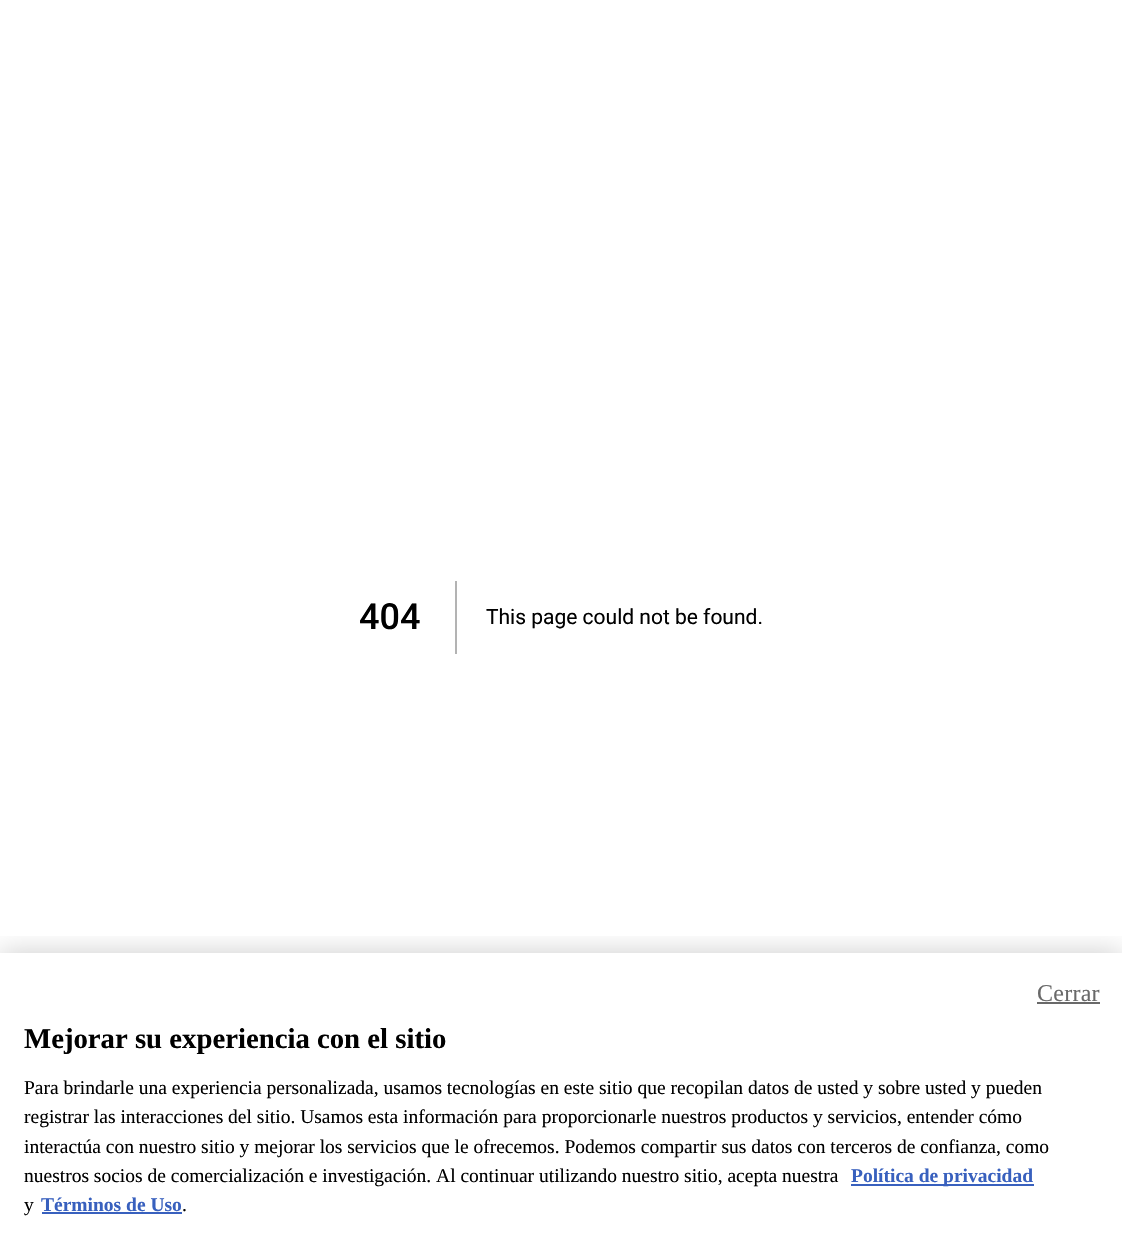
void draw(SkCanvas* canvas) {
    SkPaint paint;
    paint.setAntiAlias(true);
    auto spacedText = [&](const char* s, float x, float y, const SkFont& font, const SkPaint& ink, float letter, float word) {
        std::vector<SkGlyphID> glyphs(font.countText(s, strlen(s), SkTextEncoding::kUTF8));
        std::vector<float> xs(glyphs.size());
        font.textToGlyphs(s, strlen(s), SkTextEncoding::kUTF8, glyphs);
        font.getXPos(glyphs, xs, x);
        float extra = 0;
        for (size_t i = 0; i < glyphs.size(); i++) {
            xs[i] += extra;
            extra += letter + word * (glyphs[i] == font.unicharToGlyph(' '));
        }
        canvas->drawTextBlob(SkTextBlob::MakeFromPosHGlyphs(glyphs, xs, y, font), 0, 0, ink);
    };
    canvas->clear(0xFFFFFFFF);
    paint.setColor(0xFFB3B3B3);
    canvas->drawRect(SkRect::MakeXYWH(455, 581, 2, 73), paint);
    SkFont font1(fontMgr->matchFamilyStyle("Roboto", SkFontStyle(500, SkFontStyle::kNormal_Width, SkFontStyle::kUpright_Slant)), 36);
    font1.setSubpixel(true);
    paint.setColor(0xFF000000);
    canvas->drawString("404", 359, 629, font1, paint);
    SkFont font2(fontMgr->matchFamilyStyle("Roboto", SkFontStyle::Normal()), 21);
    font2.setSubpixel(true);
    canvas->drawString("This page could not be found.", 486, 624, font2, paint);
    canvas->save();
    canvas->clipRect(SkRect::MakeXYWH(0, 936, 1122, 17));
    paint.setColor(0x33000000);
    paint.setMaskFilter(SkMaskFilter::MakeBlur(kNormal_SkBlurStyle, 13.5f));
    canvas->drawRect(SkRect::MakeXYWH(0, 953, 1122, 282), paint);
    paint.setMaskFilter(nullptr);
    canvas->restore();
    SkFont font3(fontMgr->matchFamilyStyle("Liberation Serif", SkFontStyle::Normal()), 24);
    font3.setSubpixel(true);
    paint.setColor(0xFF696969);
    spacedText("Cerrar", 1037, 1001, font3, paint, 0.25f, 0);
    canvas->drawRect(SkRect::MakeXYWH(1037, 1002, 63, 2), paint);
    SkFont font4(fontMgr->matchFamilyStyle("Liberation Serif", SkFontStyle::Bold()), 28.75f);
    font4.setSubpixel(true);
    paint.setColor(0xFF000000);
    canvas->drawString("Mejorar su experiencia con el sitio", 24, 1048, font4, paint);
    SkFont font5(fontMgr->matchFamilyStyle("Liberation Serif", SkFontStyle::Normal()), 19.5f);
    font5.setSubpixel(true);
    canvas->drawString("Para brindarle una experiencia personalizada, usamos tecnologías en este sitio que recopilan datos de usted y sobre usted y pueden", 24, 1094, font5, paint);
    canvas->drawString("registrar las interacciones del sitio. Usamos esta información para proporcionarle nuestros productos y servicios, entender cómo", 24, 1123, font5, paint);
    canvas->drawString("interactúa con nuestro sitio y mejorar los servicios que le ofrecemos. Podemos compartir sus datos con terceros de confianza, como", 24, 1153, font5, paint);
    canvas->drawString("nuestros socios de comercialización e investigación. Al continuar utilizando nuestro sitio, acepta nuestra", 24, 1182, font5, paint);
    paint.setColor(0xFF3860BE);
    canvas->drawRect(SkRect::MakeXYWH(851, 1184, 183, 2), paint);
    SkFont font6(fontMgr->matchFamilyStyle("Liberation Serif", SkFontStyle::Bold()), 19.5f);
    font6.setSubpixel(true);
    canvas->drawString("Política de privacidad", 851, 1182, font6, paint);
    paint.setColor(0xFF000000);
    canvas->drawString("y", 24, 1211, font5, paint);
    paint.setColor(0xFF3860BE);
    canvas->drawString("Términos de Uso", 41, 1211, font6, paint);
    canvas->drawRect(SkRect::MakeXYWH(42, 1212, 140, 2), paint);
    paint.setColor(0xFF000000);
    canvas->drawString(".", 182, 1211, font5, paint);
}
